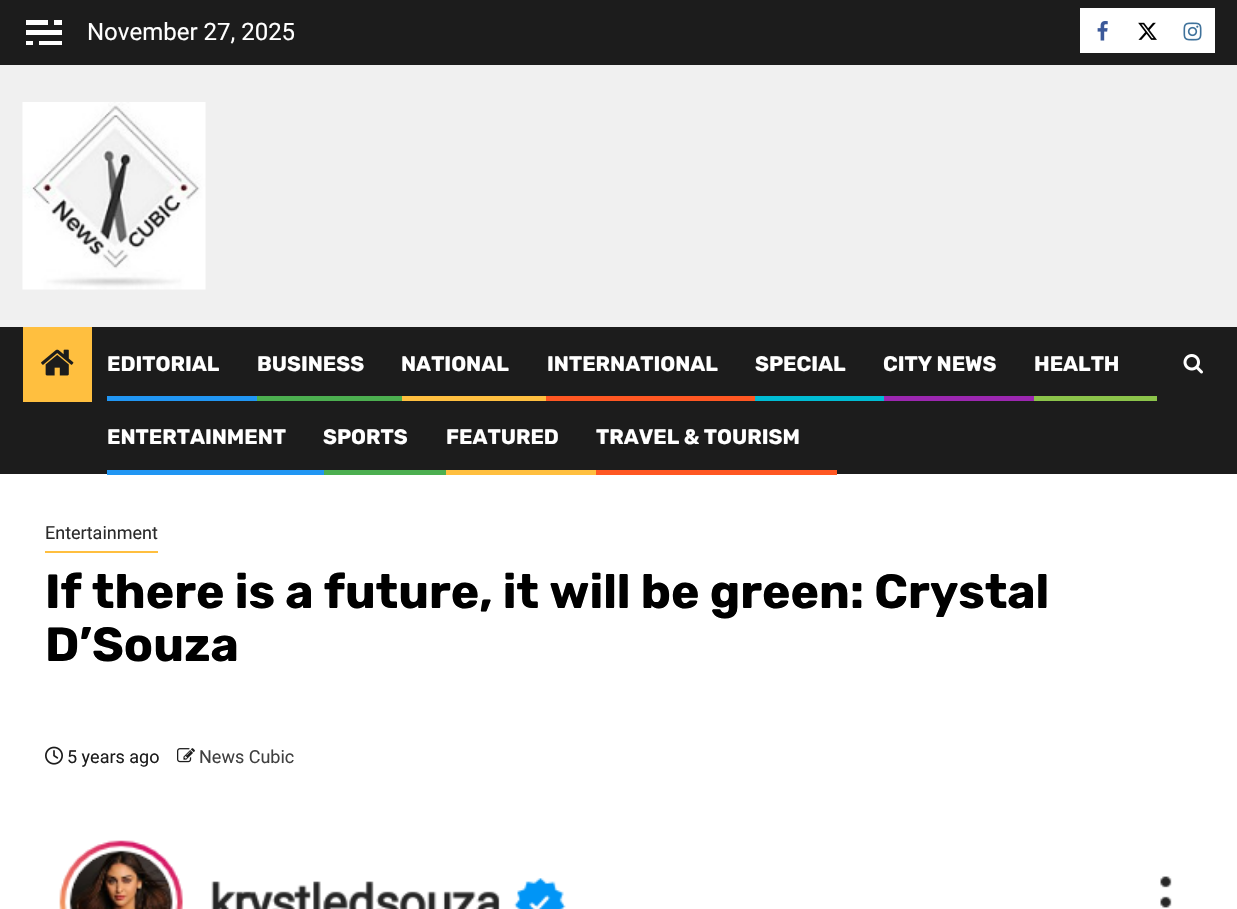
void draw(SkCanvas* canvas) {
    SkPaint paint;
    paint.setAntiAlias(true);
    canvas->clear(0xFFFFFFFF);
    paint.setColor(0xFFF0F0F0);
    canvas->drawRect(SkRect::MakeXYWH(0, 65, 1237, 262), paint);
    paint.setColor(0xFF1C1C1C);
    canvas->drawRect(SkRect::MakeXYWH(0, 0, 1237, 65), paint);
    paint.setColor(0xFFFFFFFF);
    canvas->drawRect(SkRect::MakeXYWH(54, 20, 8, 5), paint);
    canvas->drawRect(SkRect::MakeXYWH(26, 20, 22, 5), paint);
    canvas->drawRect(SkRect::MakeXYWH(26, 30, 36, 5), paint);
    canvas->drawRect(SkRect::MakeXYWH(39, 41, 23, 4), paint);
    canvas->drawRect(SkRect::MakeXYWH(26, 41, 7, 4), paint);
    SkFont font1(fontMgr->matchFamilyStyle("Roboto", SkFontStyle::Normal()), 24);
    font1.setSubpixel(true);
    canvas->drawString("November 27, 2025", 87, 40, font1, paint);
    canvas->drawRect(SkRect::MakeXYWH(1080, 8, 135, 45), paint);
    canvas->drawImageRect(SkImages::DeferredFromEncodedData(SkData::MakeFromFileName("img1.png")), SkRect::MakeXYWH(1097, 21, 11, 20), SkSamplingOptions());
    canvas->drawImageRect(SkImages::DeferredFromEncodedData(SkData::MakeFromFileName("img2.png")), SkRect::MakeXYWH(1138, 22, 19, 18), SkSamplingOptions());
    canvas->drawImageRect(SkImages::DeferredFromEncodedData(SkData::MakeFromFileName("img3.png")), SkRect::MakeXYWH(1183, 22, 19, 19), SkSamplingOptions());
    canvas->drawImageRect(SkImages::DeferredFromEncodedData(SkData::MakeFromFileName("img4.png")), SkRect::MakeXYWH(22, 102, 184, 188), SkSamplingOptions());
    paint.setColor(0xFF1C1C1C);
    canvas->drawRect(SkRect::MakeXYWH(0, 327, 1237, 147), paint);
    paint.setColor(0xFFFFBF3F);
    canvas->drawRect(SkRect::MakeXYWH(23, 327, 69, 75), paint);
    canvas->drawImageRect(SkImages::DeferredFromEncodedData(SkData::MakeFromFileName("img5.png")), SkRect::MakeXYWH(41, 349, 33, 27), SkSamplingOptions());
    SkFont font2(fontMgr->matchFamilyStyle("Rubik", SkFontStyle::Bold()), 21);
    font2.setSubpixel(true);
    paint.setColor(0xFFFFFFFF);
    canvas->drawString("EDITORIAL", 107, 371, font2, paint);
    paint.setColor(0xFF2196F3);
    canvas->drawRect(SkRect::MakeXYWH(107, 396, 150, 5), paint);
    paint.setColor(0xFFFFFFFF);
    canvas->drawString("BUSINESS", 257, 371, font2, paint);
    paint.setColor(0xFF4CAF50);
    canvas->drawRect(SkRect::MakeXYWH(257, 396, 145, 5), paint);
    paint.setColor(0xFFFFFFFF);
    canvas->drawString("NATIONAL", 401, 371, font2, paint);
    paint.setColor(0xFFFFBF3F);
    canvas->drawRect(SkRect::MakeXYWH(402, 396, 144, 5), paint);
    paint.setColor(0xFFFFFFFF);
    canvas->drawString("INTERNATIONAL", 547, 371, font2, paint);
    paint.setColor(0xFFFF5722);
    canvas->drawRect(SkRect::MakeXYWH(546, 396, 209, 5), paint);
    paint.setColor(0xFFFFFFFF);
    canvas->drawString("SPECIAL", 755, 371, font2, paint);
    paint.setColor(0xFF00BCD4);
    canvas->drawRect(SkRect::MakeXYWH(755, 396, 129, 5), paint);
    paint.setColor(0xFFFFFFFF);
    canvas->drawString("CITY NEWS", 883, 371, font2, paint);
    paint.setColor(0xFF9C27B0);
    canvas->drawRect(SkRect::MakeXYWH(884, 396, 150, 5), paint);
    paint.setColor(0xFFFFFFFF);
    canvas->drawString("HEALTH", 1034, 371, font2, paint);
    paint.setColor(0xFF8BC34A);
    canvas->drawRect(SkRect::MakeXYWH(1034, 396, 123, 5), paint);
    paint.setColor(0xFFFFFFFF);
    canvas->drawString("ENTERTAINMENT", 107, 444, font2, paint);
    paint.setColor(0xFF2196F3);
    canvas->drawRect(SkRect::MakeXYWH(107, 470, 217, 5), paint);
    paint.setColor(0xFFFFFFFF);
    canvas->drawString("SPORTS", 323, 444, font2, paint);
    paint.setColor(0xFF4CAF50);
    canvas->drawRect(SkRect::MakeXYWH(324, 470, 122, 5), paint);
    paint.setColor(0xFFFFFFFF);
    canvas->drawString("FEATURED", 446, 444, font2, paint);
    paint.setColor(0xFFFFBF3F);
    canvas->drawRect(SkRect::MakeXYWH(446, 470, 150, 5), paint);
    paint.setColor(0xFFFFFFFF);
    canvas->drawString("TRAVEL & TOURISM", 596, 444, font2, paint);
    paint.setColor(0xFFFF5722);
    canvas->drawRect(SkRect::MakeXYWH(596, 470, 241, 5), paint);
    canvas->drawImageRect(SkImages::DeferredFromEncodedData(SkData::MakeFromFileName("img6.png")), SkRect::MakeXYWH(1183, 354, 20, 20), SkSamplingOptions());
    paint.setColor(0xFFFFBF3F);
    canvas->drawRect(SkRect::MakeXYWH(45, 551, 113, 2), paint);
    SkFont font3(fontMgr->matchFamilyStyle("Roboto", SkFontStyle::Normal()), 18);
    font3.setSubpixel(true);
    paint.setColor(0xFF2B2B2B);
    canvas->drawString("Entertainment", 45, 539, font3, paint);
    SkFont font4(fontMgr->matchFamilyStyle("Rubik", SkFontStyle::Bold()), 48);
    font4.setSubpixel(true);
    paint.setColor(0xFF000000);
    canvas->drawString("If there is a future, it will be green: Crystal", 45, 608, font4, paint);
    canvas->drawString("D’Souza", 45, 661, font4, paint);
    canvas->drawImageRect(SkImages::DeferredFromEncodedData(SkData::MakeFromFileName("img7.png")), SkRect::MakeXYWH(45, 746, 18, 19), SkSamplingOptions());
    paint.setColor(0xFF1C1C1C);
    canvas->drawString("5 years ago", 67, 763, font3, paint);
    canvas->drawImageRect(SkImages::DeferredFromEncodedData(SkData::MakeFromFileName("img8.png")), SkRect::MakeXYWH(177, 748, 18, 15), SkSamplingOptions());
    paint.setColor(0xFF404040);
    canvas->drawString("News Cubic", 199, 763, font3, paint);
    canvas->drawImageRect(SkImages::DeferredFromEncodedData(SkData::MakeFromFileName("img9.png")), SkRect::MakeXYWH(59, 840, 1113, 69), SkSamplingOptions());
}
